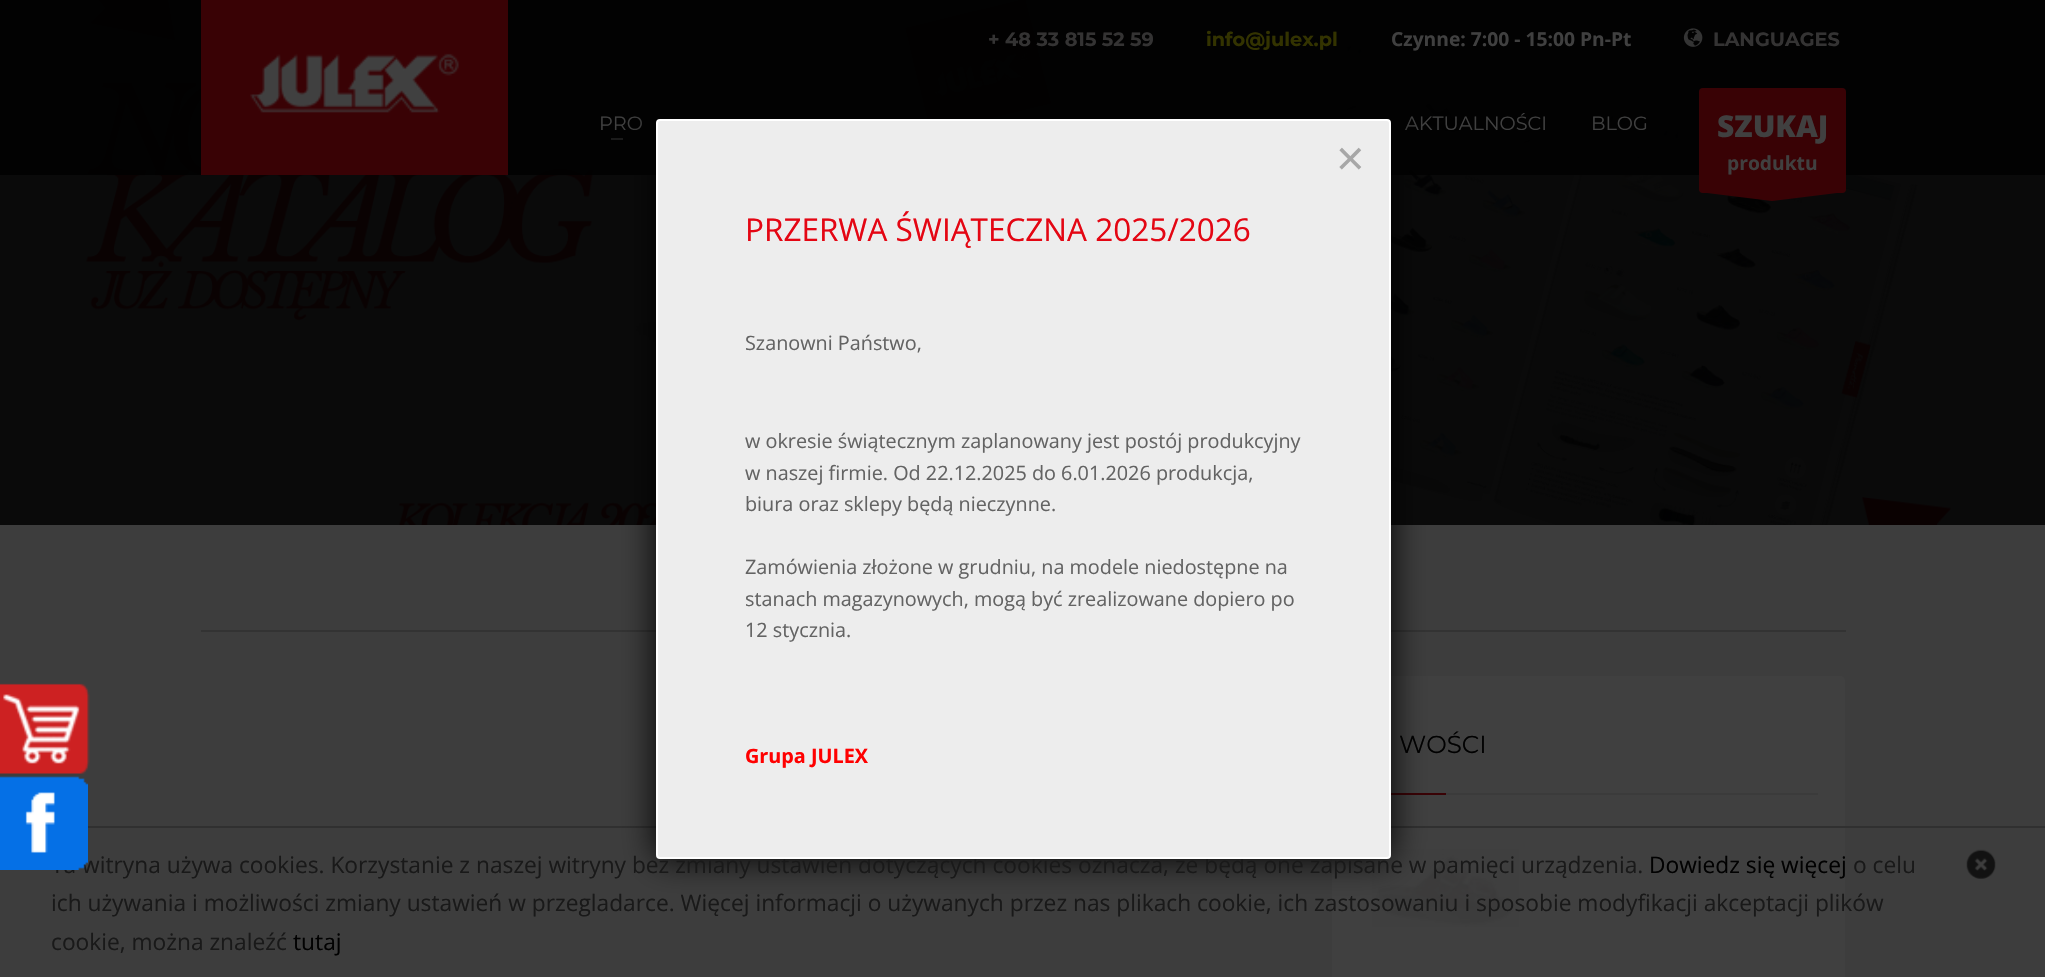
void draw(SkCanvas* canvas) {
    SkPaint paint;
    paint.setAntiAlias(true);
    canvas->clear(0xFF3D3D3D);
    canvas->drawImageRect(SkImages::DeferredFromEncodedData(SkData::MakeFromFileName("img1.png")), SkRect::MakeXYWH(0, 0, 2045, 525), SkSamplingOptions());
    paint.setColor(0xCC000000);
    canvas->drawRect(SkRect::MakeXYWH(0, 0, 2045, 175), paint);
    paint.setColor(0xFF390205);
    canvas->drawRect(SkRect::MakeXYWH(201, 0, 307, 175), paint);
    canvas->drawImageRect(SkImages::DeferredFromEncodedData(SkData::MakeFromFileName("img2.png")), SkRect::MakeXYWH(250, 53, 209, 60), SkSamplingOptions());
    SkFont font1(fontMgr->matchFamilyStyle("Montserrat", SkFontStyle::Bold()), 19.25f);
    font1.setSubpixel(true);
    paint.setColor(0xFF343333);
    canvas->drawString("+ 48 33 815 52 59", 988, 46, font1, paint);
    paint.setColor(0xFF333300);
    canvas->drawString("info@julex.pl", 1206, 46, font1, paint);
    SkFont font2(fontMgr->matchFamilyStyle("Open Sans", SkFontStyle::Bold()), 19.25f);
    font2.setSubpixel(true);
    paint.setColor(0xFF404040);
    canvas->drawString("Czynne: 7:00 - 15:00 Pn-Pt", 1391, 46, font2, paint);
    canvas->drawImageRect(SkImages::DeferredFromEncodedData(SkData::MakeFromFileName("img3.png")), SkRect::MakeXYWH(1683, 28, 20, 19), SkSamplingOptions());
    paint.setColor(0xFF343333);
    canvas->drawString("LANGUAGES", 1713, 46, font1, paint);
    SkFont font3(fontMgr->matchFamilyStyle("Montserrat", SkFontStyle::Normal()), 19.25f);
    font3.setSubpixel(true);
    paint.setColor(0xFF404040);
    canvas->drawString("PRO", 599, 130, font3, paint);
    paint.setColor(0xFF1B1B1B);
    canvas->drawRect(SkRect::MakeXYWH(611, 138, 12, 2), paint);
    paint.setColor(0xFF404040);
    canvas->drawString("AKTUALNOŚCI", 1405, 130, font3, paint);
    canvas->drawString("BLOG", 1591, 130, font3, paint);
    paint.setColor(0xFF390205);
    canvas->drawRoundRect(SkRect::MakeXYWH(1699, 88, 147, 105), 4, 4, paint);
    SkFont font4(fontMgr->matchFamilyStyle("Open Sans", SkFontStyle(800, SkFontStyle::kNormal_Width, SkFontStyle::kUpright_Slant)), 30);
    font4.setSubpixel(true);
    paint.setColor(0xFF404040);
    canvas->drawString("SZUKAJ", 1717, 137, font4, paint);
    canvas->drawString("produktu", 1727, 170, font2, paint);
    canvas->save();
    canvas->clipRect(SkRect::MakeXYWH(1699, 193, 147, 8));
    paint.setColor(0xFF390205);
    canvas->drawPath(SkPathBuilder(SkPathFillType::kEvenOdd).moveTo(1845, 192).lineTo(1772, 201).lineTo(1699, 192).close().detach(), paint);
    canvas->restore();
    paint.setColor(0xFF333333);
    canvas->drawRect(SkRect::MakeXYWH(201, 630, 1645, 2), paint);
    paint.setColor(0xFF404040);
    canvas->drawRoundRect(SkRect::MakeXYWH(1332, 676, 513, 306), 5, 5, paint);
    SkFont font5(fontMgr->matchFamilyStyle("Montserrat", SkFontStyle::Normal()), 24.5f);
    font5.setSubpixel(true);
    paint.setColor(0xFF010101);
    canvas->drawString("WOŚCI", 1399, 753, font5, paint);
    paint.setColor(0xFF390205);
    canvas->drawRect(SkRect::MakeXYWH(1391, 793, 55, 2), paint);
    paint.setColor(0xFF3B3B3B);
    canvas->drawRect(SkRect::MakeXYWH(1446, 793, 372, 2), paint);
    canvas->drawImageRect(SkImages::DeferredFromEncodedData(SkData::MakeFromFileName("img4.png")), SkRect::MakeXYWH(1372, 849, 147, 78), SkSamplingOptions());
    canvas->drawImageRect(SkImages::DeferredFromEncodedData(SkData::MakeFromFileName("img5.png")), SkRect::MakeXYWH(0, 683, 90, 91), SkSamplingOptions());
    paint.setColor(0xFF303030);
    canvas->drawRect(SkRect::MakeXYWH(88, 826, 1957, 2), paint);
    paint.setColor(0xFF000000);
    paint.setMaskFilter(SkMaskFilter::MakeBlur(kNormal_SkBlurStyle, 17.5f));
    canvas->drawRoundRect(SkRect::MakeXYWH(656, 119, 735, 740), 4, 4, paint);
    paint.setMaskFilter(nullptr);
    SkFont font6(fontMgr->matchFamilyStyle("Open Sans", SkFontStyle::Normal()), 22.75f);
    font6.setSubpixel(true);
    paint.setColor(0xFF191919);
    canvas->drawString("Ta witryna używa cookies. Korzystanie z naszej witryny bez zmiany ustawień dotyczących cookies oznacza, że będą one zapisane w pamięci urządzenia.", 51, 873, font6, paint);
    paint.setColor(0xFFEDEDED);
    canvas->drawRoundRect(SkRect::MakeXYWH(657, 120, 733, 738), 3, 3, paint);
    paint.setStyle(SkPaint::kStroke_Style);
    paint.setStrokeWidth(2);
    paint.setColor(0xFFFFFFFF);
    canvas->drawRoundRect(SkRect::MakeXYWH(657, 120, 733, 738), 3, 3, paint);
    SkFont font7(fontMgr->matchFamilyStyle("Liberation Sans", SkFontStyle::Normal()), 49);
    font7.setSubpixel(true);
    paint.setStyle(SkPaint::kFill_Style);
    paint.setColor(0xFFA7A7A7);
    canvas->drawString("×", 1336, 175, font7, paint);
    SkFont font8(fontMgr->matchFamilyStyle("Open Sans", SkFontStyle::Normal()), 31.5f);
    font8.setSubpixel(true);
    paint.setColor(0xFFE40613);
    canvas->drawString("PRZERWA ŚWIĄTECZNA 2025/2026", 745, 241, font8, paint);
    SkFont font9(fontMgr->matchFamilyStyle("Open Sans", SkFontStyle::Normal()), 19.8f);
    font9.setSubpixel(true);
    paint.setColor(0xFF636363);
    canvas->drawString("Szanowni Państwo,", 745, 350, font9, paint);
    canvas->drawString("w okresie świątecznym zaplanowany jest postój produkcyjny", 745, 448, font9, paint);
    canvas->drawString("w naszej firmie. Od 22.12.2025 do 6.01.2026 produkcja,", 745, 480, font9, paint);
    canvas->drawString("biura oraz sklepy będą nieczynne.", 745, 511, font9, paint);
    canvas->drawString("Zamówienia złożone w grudniu, na modele niedostępne na", 745, 574, font9, paint);
    canvas->drawString("stanach magazynowych, mogą być zrealizowane dopiero po", 745, 606, font9, paint);
    canvas->drawString("12 stycznia.", 745, 637, font9, paint);
    SkFont font10(fontMgr->matchFamilyStyle("Open Sans", SkFontStyle::Bold()), 19.8f);
    font10.setSubpixel(true);
    paint.setColor(0xFFFF0000);
    canvas->drawString("Grupa JULEX", 745, 763, font10, paint);
    canvas->drawImageRect(SkImages::DeferredFromEncodedData(SkData::MakeFromFileName("img6.png")), SkRect::MakeXYWH(0, 776, 88, 94), SkSamplingOptions());
    paint.setColor(0xFF010101);
    canvas->drawString("Dowiedz się więcej", 1649, 873, font6, paint);
    paint.setColor(0xFF191919);
    canvas->drawString("o celu", 1853, 873, font6, paint);
    canvas->drawImageRect(SkImages::DeferredFromEncodedData(SkData::MakeFromFileName("img7.png")), SkRect::MakeXYWH(1966, 849, 30, 30), SkSamplingOptions());
    canvas->drawString("ich używania i możliwości zmiany ustawień w przegladarce. Więcej informacji o używanych przez nas plikach cookie, ich zastosowaniu i sposobie modyfikacji akceptacji plików", 51, 911, font6, paint);
    canvas->drawString("cookie, można znaleźć", 51, 950, font6, paint);
    paint.setColor(0xFF010101);
    canvas->drawString("tutaj", 293, 950, font6, paint);
}
